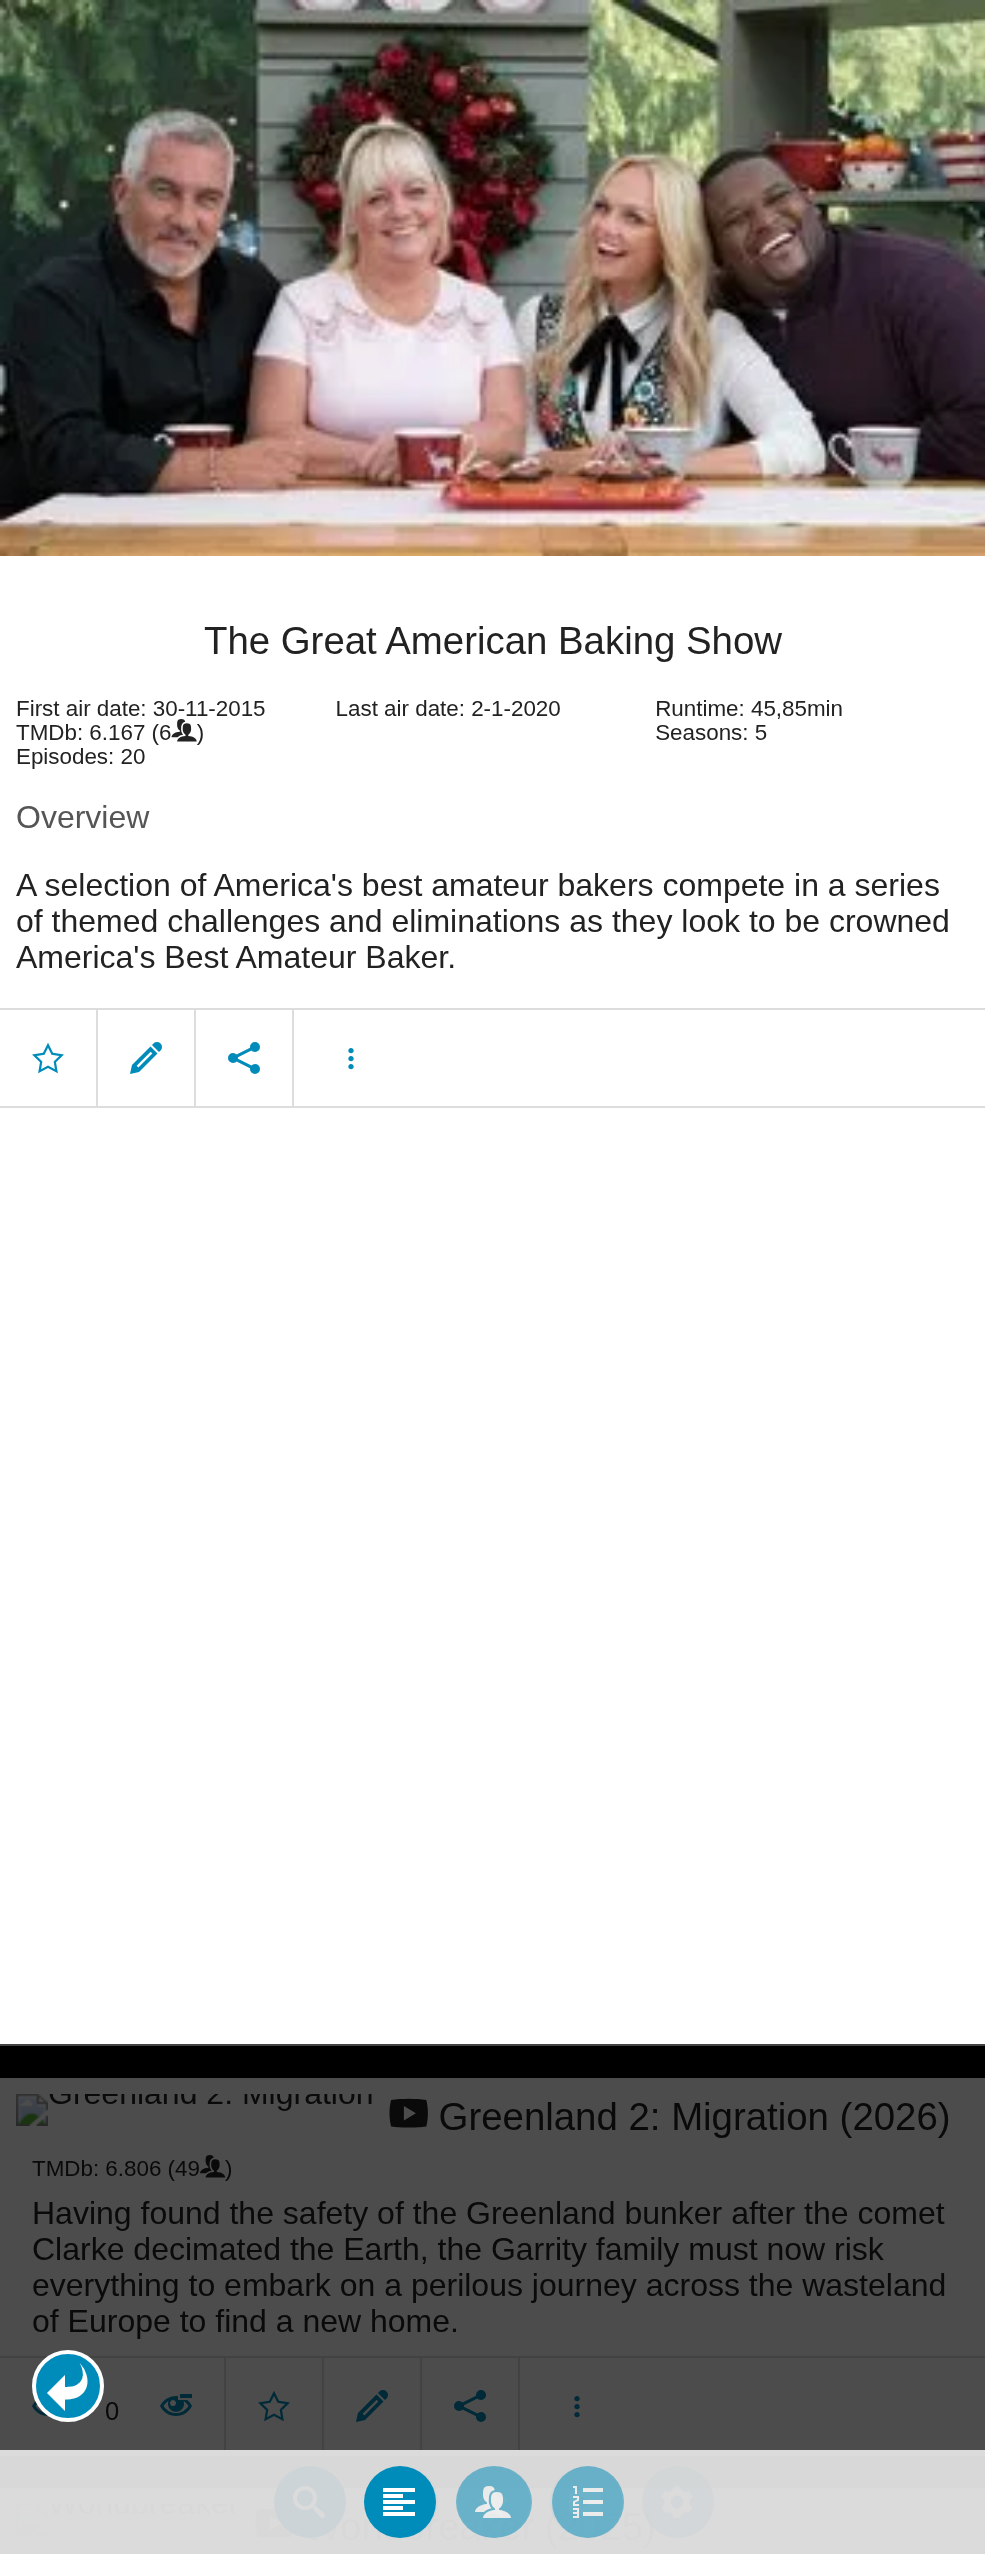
void draw(SkCanvas* canvas) {
    SkPaint paint;
    paint.setAntiAlias(true);
    canvas->clear(0xFFFFFFFF);
    canvas->drawImageRect(SkImages::DeferredFromEncodedData(SkData::MakeFromFileName("img1.png")), SkRect::MakeXYWH(0, 0, 985, 2554), SkSamplingOptions());
}
